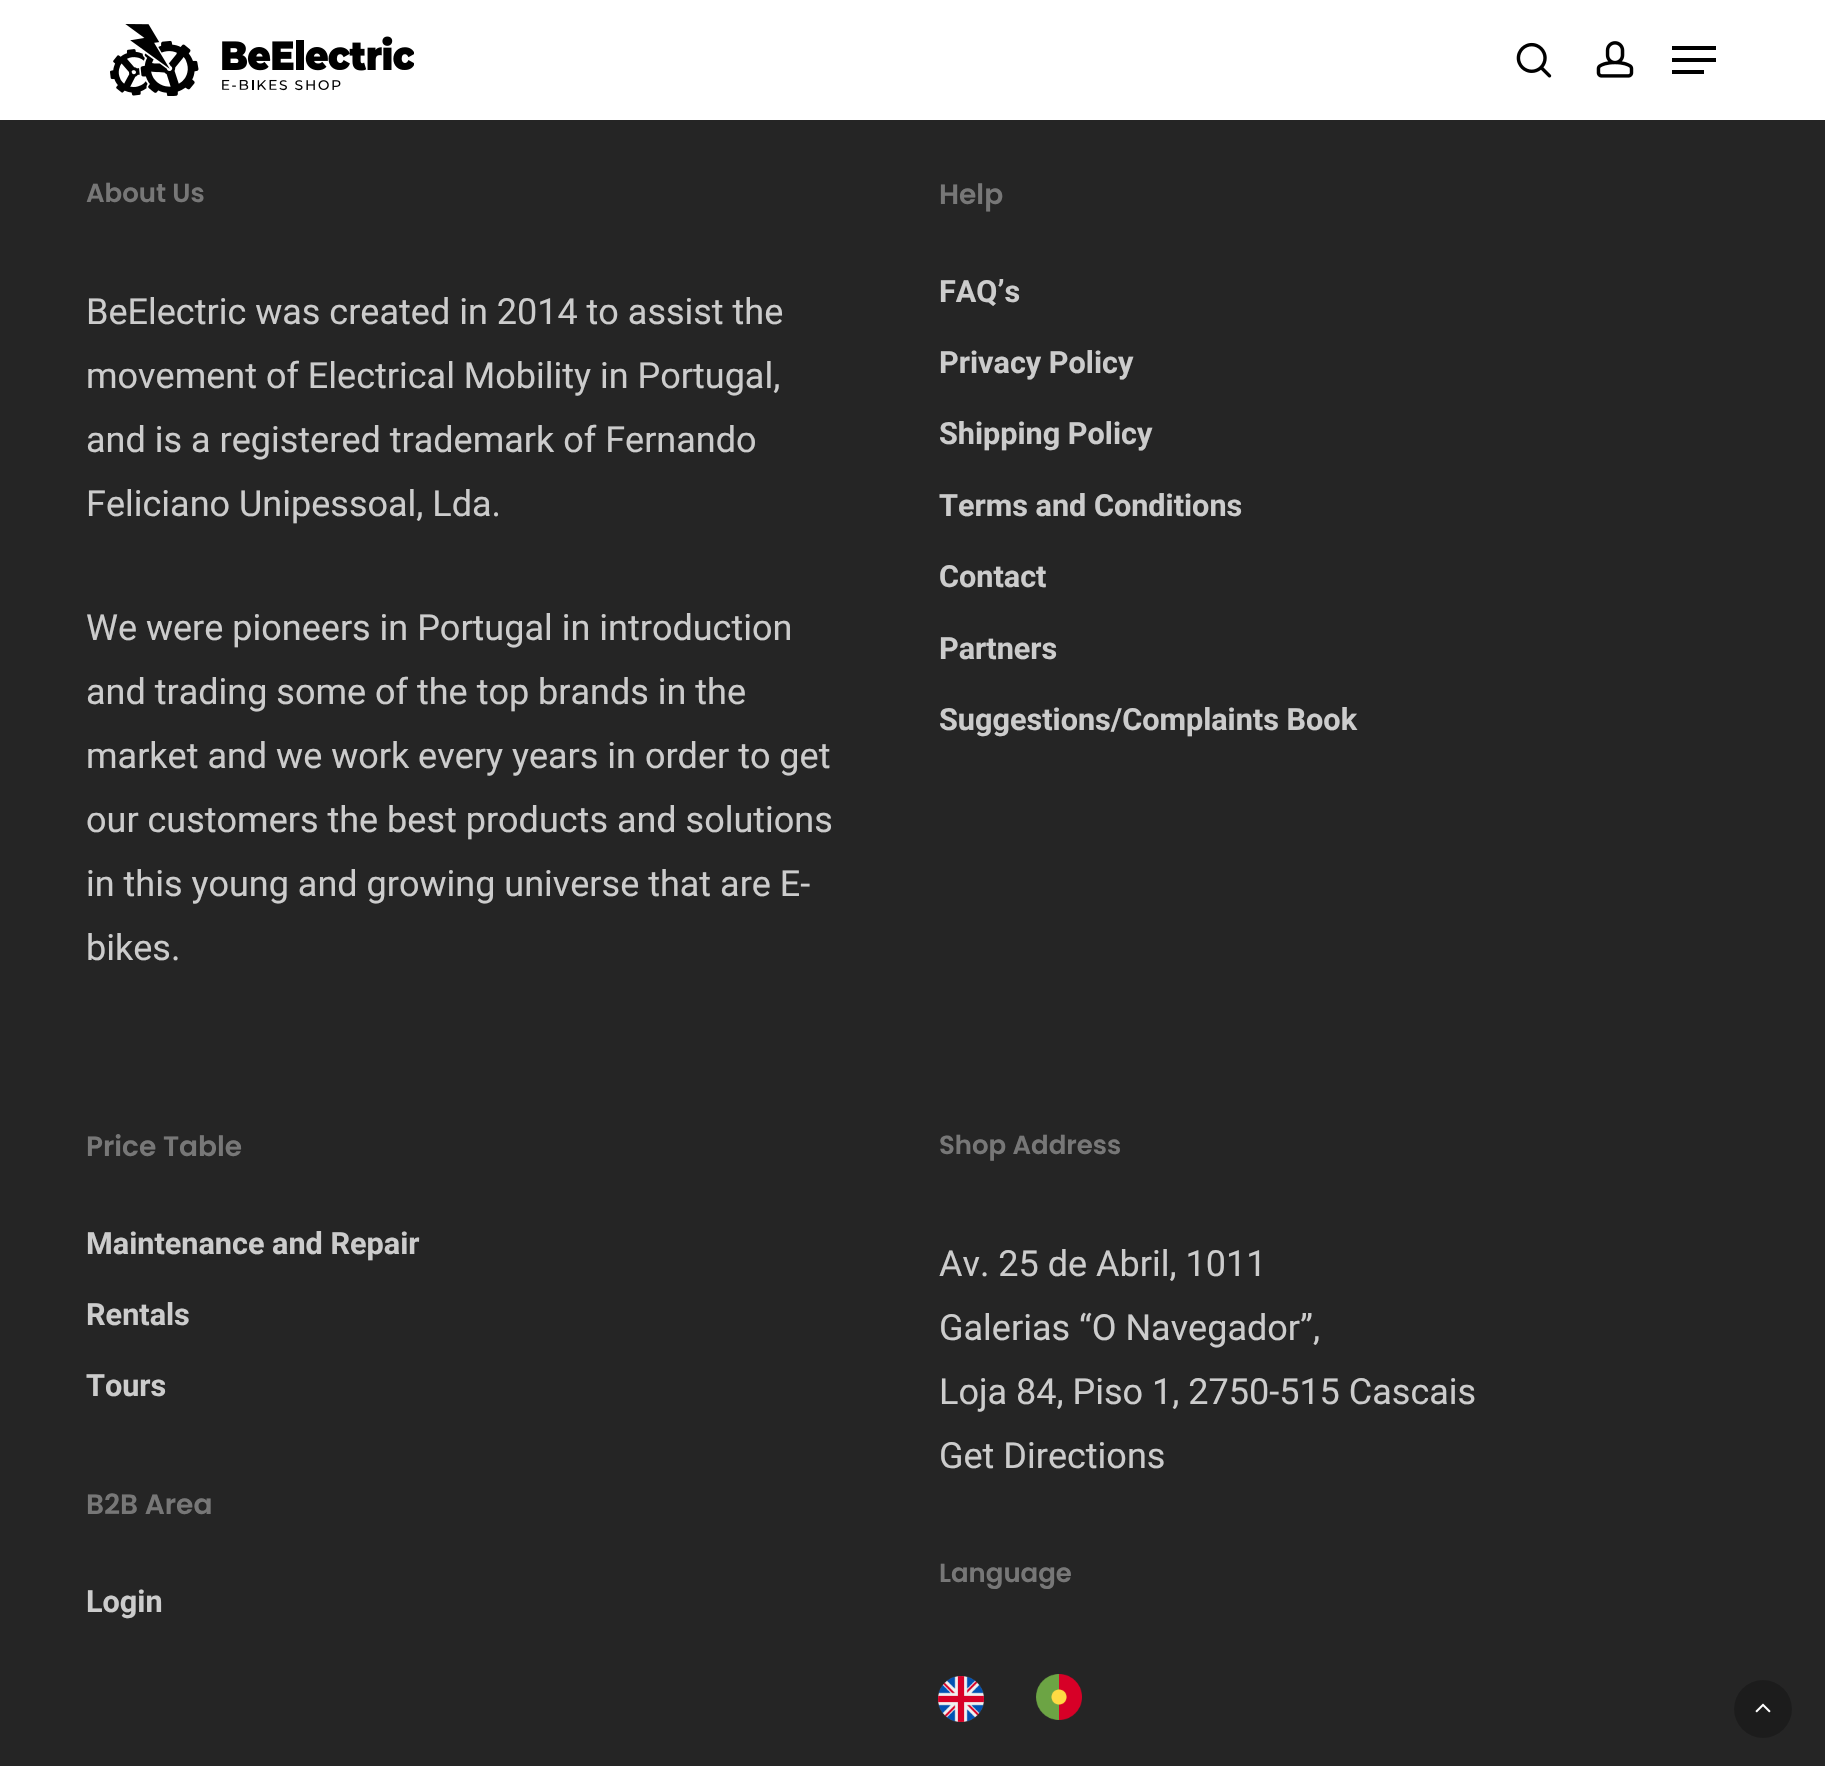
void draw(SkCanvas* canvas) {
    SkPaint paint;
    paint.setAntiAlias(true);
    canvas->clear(0xFF252525);
    paint.setColor(0xFFFFFFFF);
    canvas->drawRect(SkRect::MakeXYWH(0, 0, 1825, 120), paint);
    canvas->drawImageRect(SkImages::DeferredFromEncodedData(SkData::MakeFromFileName("img1.png")), SkRect::MakeXYWH(110, 24, 304, 72), SkSamplingOptions());
    canvas->drawImageRect(SkImages::DeferredFromEncodedData(SkData::MakeFromFileName("img2.png")), SkRect::MakeXYWH(1516, 42, 36, 36), SkSamplingOptions());
    canvas->drawImageRect(SkImages::DeferredFromEncodedData(SkData::MakeFromFileName("img3.png")), SkRect::MakeXYWH(1596, 41, 38, 37), SkSamplingOptions());
    paint.setColor(0xFF000000);
    canvas->drawRect(SkRect::MakeXYWH(1672, 46, 44, 4), paint);
    canvas->drawRect(SkRect::MakeXYWH(1672, 70, 32, 4), paint);
    canvas->drawRect(SkRect::MakeXYWH(1672, 58, 44, 4), paint);
    SkFont font1(fontMgr->matchFamilyStyle("Poppins", SkFontStyle(600, SkFontStyle::kNormal_Width, SkFontStyle::kUpright_Slant)), 26);
    font1.setSubpixel(true);
    paint.setColor(0xFF777777);
    canvas->drawString("About Us", 86, 202, font1, paint);
    SkFont font2(fontMgr->matchFamilyStyle("Roboto", SkFontStyle::Normal()), 36);
    font2.setSubpixel(true);
    paint.setColor(0xFFCCCCCC);
    canvas->drawString("BeElectric was created in 2014 to assist the", 86, 324, font2, paint);
    canvas->drawString("movement of Electrical Mobility in Portugal,", 86, 388, font2, paint);
    canvas->drawString("and is a registered trademark of Fernando", 86, 452, font2, paint);
    canvas->drawString("Feliciano Unipessoal, Lda.", 86, 516, font2, paint);
    canvas->drawString("We were pioneers in Portugal in introduction", 86, 640, font2, paint);
    canvas->drawString("and trading some of the top brands in the", 86, 704, font2, paint);
    canvas->drawString("market and we work every years in order to get", 86, 768, font2, paint);
    canvas->drawString("our customers the best products and solutions", 86, 832, font2, paint);
    canvas->drawString("in this young and growing universe that are E-", 86, 896, font2, paint);
    canvas->drawString("bikes.", 86, 960, font2, paint);
    SkFont font3(fontMgr->matchFamilyStyle("Poppins", SkFontStyle(600, SkFontStyle::kNormal_Width, SkFontStyle::kUpright_Slant)), 28);
    font3.setSubpixel(true);
    paint.setColor(0xFF777777);
    canvas->drawString("Help", 939, 204, font3, paint);
    SkFont font4(fontMgr->matchFamilyStyle("Roboto", SkFontStyle::Bold()), 30.6f);
    font4.setSubpixel(true);
    paint.setColor(0xFFCCCCCC);
    canvas->drawString("FAQ’s", 939, 302, font4, paint);
    canvas->drawString("Privacy Policy", 939, 373, font4, paint);
    canvas->drawString("Shipping Policy", 939, 444, font4, paint);
    canvas->drawString("Terms and Conditions", 939, 516, font4, paint);
    canvas->drawString("Contact", 939, 587, font4, paint);
    canvas->drawString("Partners", 939, 659, font4, paint);
    canvas->drawString("Suggestions/Complaints Book", 939, 730, font4, paint);
    paint.setColor(0xFF777777);
    canvas->drawString("Price Table", 86, 1156, font3, paint);
    paint.setColor(0xFFCCCCCC);
    canvas->drawString("Maintenance and Repair", 86, 1254, font4, paint);
    canvas->drawString("Rentals", 86, 1325, font4, paint);
    canvas->drawString("Tours", 86, 1396, font4, paint);
    paint.setColor(0xFF777777);
    canvas->drawString("B2B Area", 86, 1514, font3, paint);
    paint.setColor(0xFFCCCCCC);
    canvas->drawString("Login", 86, 1612, font4, paint);
    paint.setColor(0xFF777777);
    canvas->drawString("Shop Address", 939, 1154, font1, paint);
    paint.setColor(0xFFCCCCCC);
    canvas->drawString("Av. 25 de Abril, 1011", 939, 1276, font2, paint);
    canvas->drawString("Galerias “O Navegador”,", 939, 1340, font2, paint);
    canvas->drawString("Loja 84, Piso 1, 2750-515 Cascais", 939, 1404, font2, paint);
    canvas->drawString("Get Directions", 939, 1468, font2, paint);
    paint.setColor(0xFF777777);
    canvas->drawString("Language", 939, 1582, font1, paint);
    canvas->drawImageRect(SkImages::DeferredFromEncodedData(SkData::MakeFromFileName("img4.png")), SkRect::MakeXYWH(938, 1676, 46, 46), SkSamplingOptions());
    canvas->drawImageRect(SkImages::DeferredFromEncodedData(SkData::MakeFromFileName("img5.png")), SkRect::MakeXYWH(1036, 1674, 46, 46), SkSamplingOptions());
    paint.setColor(0xFF1C1C1C);
    canvas->drawCircle(1763, 1709, 29, paint);
    canvas->drawImageRect(SkImages::DeferredFromEncodedData(SkData::MakeFromFileName("img6.png")), SkRect::MakeXYWH(1755, 1703, 16, 10), SkSamplingOptions());
}
